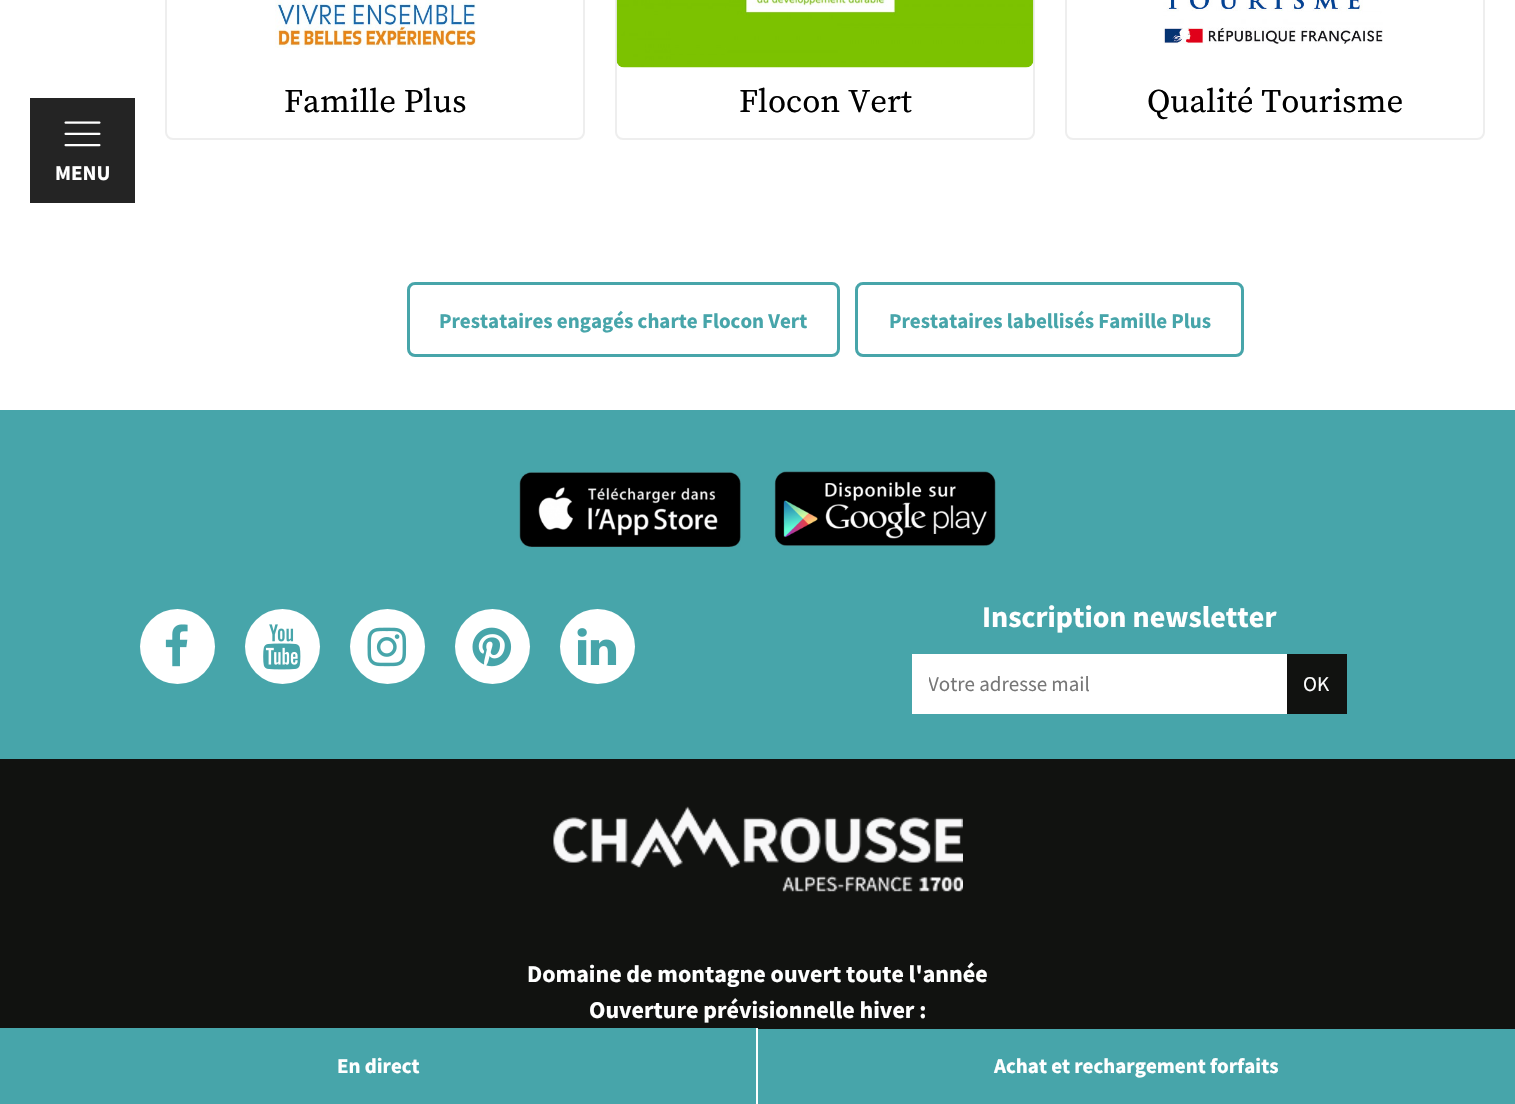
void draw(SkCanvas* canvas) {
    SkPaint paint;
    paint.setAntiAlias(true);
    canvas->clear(0xFFFFFFFF);
    paint.setStyle(SkPaint::kStroke_Style);
    paint.setStrokeWidth(2);
    paint.setColor(0xFFEEEEEE);
    canvas->drawRoundRect(SkRect::MakeXYWH(166, -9, 418, 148), 7, 7, paint);
    canvas->drawImageRect(SkImages::DeferredFromEncodedData(SkData::MakeFromFileName("img1.png")), SkRect::MakeXYWH(275, 0, 201, 48), SkSamplingOptions());
    SkFont font1(fontMgr->matchFamilyStyle("Source Serif Pro", SkFontStyle::Normal()), 33);
    font1.setSubpixel(true);
    paint.setStyle(SkPaint::kFill_Style);
    paint.setColor(0xFF000000);
    canvas->drawString("Famille Plus", 284, 112, font1, paint);
    paint.setStyle(SkPaint::kStroke_Style);
    paint.setColor(0xFFEEEEEE);
    canvas->drawRoundRect(SkRect::MakeXYWH(616, -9, 418, 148), 7, 7, paint);
    canvas->drawImageRect(SkImages::DeferredFromEncodedData(SkData::MakeFromFileName("img2.png")), SkRect::MakeXYWH(616, 0, 418, 68), SkSamplingOptions());
    paint.setStyle(SkPaint::kFill_Style);
    paint.setColor(0xFF000000);
    canvas->drawString("Flocon Vert", 739, 112, font1, paint);
    paint.setStyle(SkPaint::kStroke_Style);
    paint.setColor(0xFFEEEEEE);
    canvas->drawRoundRect(SkRect::MakeXYWH(1066, -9, 418, 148), 7, 7, paint);
    canvas->drawImageRect(SkImages::DeferredFromEncodedData(SkData::MakeFromFileName("img3.png")), SkRect::MakeXYWH(1163, 0, 220, 44), SkSamplingOptions());
    paint.setStyle(SkPaint::kFill_Style);
    paint.setColor(0xFF000000);
    canvas->drawString("Qualité Tourisme", 1147, 112, font1, paint);
    paint.setStyle(SkPaint::kStroke_Style);
    paint.setStrokeWidth(3);
    paint.setColor(0xFF47A5AA);
    canvas->drawRoundRect(SkRect::MakeXYWH(408.5f, 283.5f, 430, 72), 6.5f, 6.5f, paint);
    SkFont font2(fontMgr->matchFamilyStyle("Source Sans Pro", SkFontStyle::Bold()), 21);
    font2.setSubpixel(true);
    paint.setStyle(SkPaint::kFill_Style);
    canvas->drawString("Prestataires engagés charte Flocon Vert", 439, 328, font2, paint);
    paint.setStyle(SkPaint::kStroke_Style);
    canvas->drawRoundRect(SkRect::MakeXYWH(856.5f, 283.5f, 386, 72), 6.5f, 6.5f, paint);
    paint.setStyle(SkPaint::kFill_Style);
    canvas->drawString("Prestataires labellisés Famille Plus", 889, 328, font2, paint);
    paint.setColor(0xFF242424);
    canvas->drawRect(SkRect::MakeXYWH(30, 98, 105, 105), paint);
    canvas->drawImageRect(SkImages::DeferredFromEncodedData(SkData::MakeFromFileName("img4.png")), SkRect::MakeXYWH(64, 121, 37, 26), SkSamplingOptions());
    paint.setColor(0xFFFFFFFF);
    canvas->drawString("MENU", 55, 180, font2, paint);
    paint.setColor(0xFF111210);
    canvas->drawRect(SkRect::MakeXYWH(0, 759, 1515, 270), paint);
    paint.setColor(0xFFFFFFFF);
    canvas->drawRect(SkRect::MakeXYWH(756, 1028, 2, 1), paint);
    paint.setColor(0xFF47A5AA);
    canvas->drawRect(SkRect::MakeXYWH(0, 1028, 756, 76), paint);
    paint.setColor(0xFFFFFFFF);
    canvas->drawString("En direct", 337, 1073, font2, paint);
    paint.setColor(0xFF47A5AA);
    canvas->drawRect(SkRect::MakeXYWH(758, 1029, 757, 75), paint);
    paint.setColor(0xFFFFFFFF);
    canvas->drawString("Achat et rechargement forfaits", 994, 1073, font2, paint);
    paint.setColor(0xFF47A5AA);
    canvas->drawRect(SkRect::MakeXYWH(0, 410, 1515, 349), paint);
    canvas->drawImageRect(SkImages::DeferredFromEncodedData(SkData::MakeFromFileName("img5.png")), SkRect::MakeXYWH(519, 472, 222, 75), SkSamplingOptions());
    canvas->drawImageRect(SkImages::DeferredFromEncodedData(SkData::MakeFromFileName("img6.png")), SkRect::MakeXYWH(774, 471, 222, 75), SkSamplingOptions());
    paint.setColor(0xFFFFFFFF);
    canvas->drawCircle(177.5f, 646.5f, 37.5f, paint);
    canvas->drawImageRect(SkImages::DeferredFromEncodedData(SkData::MakeFromFileName("img7.png")), SkRect::MakeXYWH(165, 624, 23, 43), SkSamplingOptions());
    canvas->drawCircle(282.5f, 646.5f, 37.5f, paint);
    canvas->drawImageRect(SkImages::DeferredFromEncodedData(SkData::MakeFromFileName("img8.png")), SkRect::MakeXYWH(263, 624, 38, 46), SkSamplingOptions());
    canvas->drawCircle(387.5f, 646.5f, 37.5f, paint);
    canvas->drawImageRect(SkImages::DeferredFromEncodedData(SkData::MakeFromFileName("img9.png")), SkRect::MakeXYWH(367, 627, 40, 40), SkSamplingOptions());
    canvas->drawCircle(492.5f, 646.5f, 37.5f, paint);
    canvas->drawImageRect(SkImages::DeferredFromEncodedData(SkData::MakeFromFileName("img10.png")), SkRect::MakeXYWH(472, 627, 40, 40), SkSamplingOptions());
    canvas->drawCircle(597.5f, 646.5f, 37.5f, paint);
    canvas->drawImageRect(SkImages::DeferredFromEncodedData(SkData::MakeFromFileName("img11.png")), SkRect::MakeXYWH(577, 628, 40, 37), SkSamplingOptions());
    SkFont font3(fontMgr->matchFamilyStyle("Source Sans Pro", SkFontStyle::Bold()), 30);
    font3.setSubpixel(true);
    canvas->drawString("Inscription newsletter", 982, 627, font3, paint);
    canvas->drawRect(SkRect::MakeXYWH(912, 654, 375, 60), paint);
    canvas->save();
    canvas->clipRect(SkRect::MakeXYWH(929, 671, 354, 27));
    SkFont font4(fontMgr->matchFamilyStyle("Source Sans Pro", SkFontStyle::Normal()), 21);
    font4.setSubpixel(true);
    paint.setColor(0xFF777777);
    canvas->drawString("Votre adresse mail", 928, 691, font4, paint);
    canvas->restore();
    paint.setColor(0xFF111210);
    canvas->drawRect(SkRect::MakeXYWH(1287, 654, 60, 60), paint);
    paint.setColor(0xFFFFFFFF);
    canvas->drawString("OK", 1303, 691, font4, paint);
    canvas->drawImageRect(SkImages::DeferredFromEncodedData(SkData::MakeFromFileName("img12.png")), SkRect::MakeXYWH(553, 806, 410, 86), SkSamplingOptions());
    SkFont font5(fontMgr->matchFamilyStyle("Source Sans Pro", SkFontStyle::Bold()), 24);
    font5.setSubpixel(true);
    canvas->drawString("Domaine de montagne ouvert toute l'année", 527, 982, font5, paint);
    canvas->drawString("Ouverture prévisionnelle hiver :", 589, 1018, font5, paint);
}
